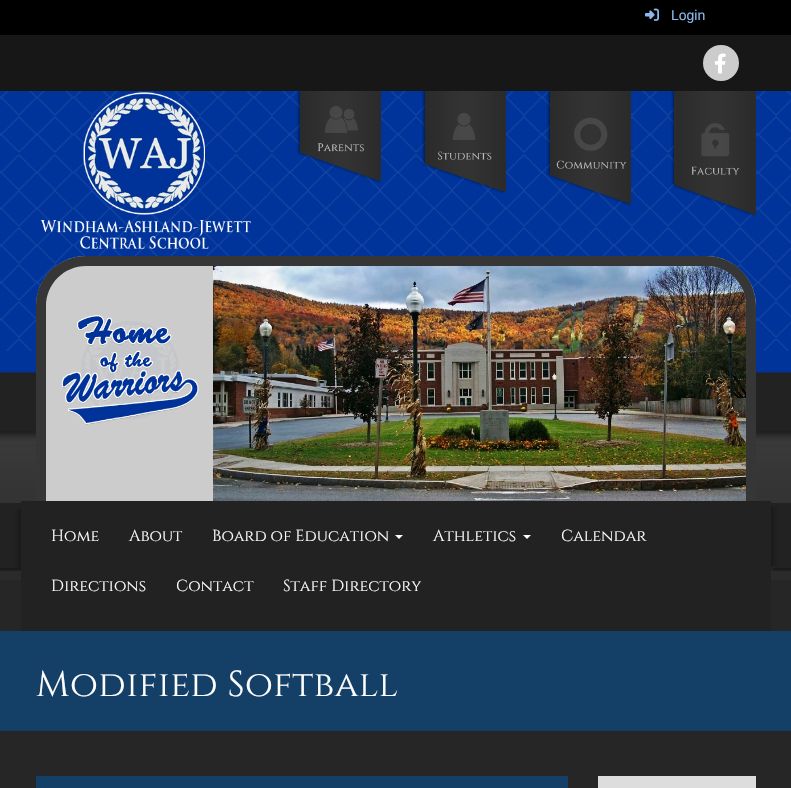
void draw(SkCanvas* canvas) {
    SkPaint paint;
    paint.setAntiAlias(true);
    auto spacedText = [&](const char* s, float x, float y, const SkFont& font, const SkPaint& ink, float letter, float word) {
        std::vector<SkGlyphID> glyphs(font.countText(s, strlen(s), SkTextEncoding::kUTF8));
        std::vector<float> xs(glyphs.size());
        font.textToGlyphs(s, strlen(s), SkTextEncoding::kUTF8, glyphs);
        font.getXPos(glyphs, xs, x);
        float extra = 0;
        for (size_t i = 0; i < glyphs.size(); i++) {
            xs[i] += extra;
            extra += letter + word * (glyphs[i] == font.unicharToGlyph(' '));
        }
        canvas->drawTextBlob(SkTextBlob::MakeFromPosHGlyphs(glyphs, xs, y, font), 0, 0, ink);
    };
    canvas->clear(0xFF262626);
    canvas->drawImageRect(SkImages::DeferredFromEncodedData(SkData::MakeFromFileName("img1.png")), SkRect::MakeXYWH(0, 91, 791, 489), SkSamplingOptions());
    paint.setColor(0xFF000000);
    canvas->drawRect(SkRect::MakeXYWH(0, 0, 791, 35), paint);
    canvas->drawImageRect(SkImages::DeferredFromEncodedData(SkData::MakeFromFileName("img2.png")), SkRect::MakeXYWH(645, 8, 14, 13), SkSamplingOptions());
    SkFont font1(fontMgr->matchFamilyStyle("Liberation Sans", SkFontStyle::Normal()), 14);
    font1.setSubpixel(true);
    paint.setColor(0xFF8BB9EE);
    canvas->drawString("Login", 671, 20, font1, paint);
    canvas->drawImageRect(SkImages::DeferredFromEncodedData(SkData::MakeFromFileName("img3.png")), SkRect::MakeXYWH(0, 91, 791, 260), SkSamplingOptions());
    paint.setColor(0xFF171717);
    canvas->drawRect(SkRect::MakeXYWH(0, 35, 791, 56), paint);
    paint.setColor(0xFFCCCCCC);
    canvas->drawCircle(721, 63, 18, paint);
    canvas->drawImageRect(SkImages::DeferredFromEncodedData(SkData::MakeFromFileName("img4.png")), SkRect::MakeXYWH(714, 53, 12, 21), SkSamplingOptions());
    canvas->drawImageRect(SkImages::DeferredFromEncodedData(SkData::MakeFromFileName("img5.png")), SkRect::MakeXYWH(40, 92, 211, 157), SkSamplingOptions());
    canvas->drawImageRect(SkImages::DeferredFromEncodedData(SkData::MakeFromFileName("img6.png")), SkRect::MakeXYWH(296, 91, 85, 92), SkSamplingOptions());
    canvas->drawImageRect(SkImages::DeferredFromEncodedData(SkData::MakeFromFileName("img7.png")), SkRect::MakeXYWH(421, 91, 85, 103), SkSamplingOptions());
    canvas->drawImageRect(SkImages::DeferredFromEncodedData(SkData::MakeFromFileName("img8.png")), SkRect::MakeXYWH(546, 91, 85, 115), SkSamplingOptions());
    canvas->drawImageRect(SkImages::DeferredFromEncodedData(SkData::MakeFromFileName("img9.png")), SkRect::MakeXYWH(671, 91, 85, 126), SkSamplingOptions());
    canvas->drawPath(SkPathBuilder().moveTo(86, 256).lineTo(706, 256).cubicTo(733.5f, 256, 756, 278.5f, 756, 306).lineTo(756, 501).lineTo(36, 501).lineTo(36, 306).cubicTo(36, 278.5f, 58.5f, 256, 86, 256).close().detach(), paint);
    paint.setColor(0xFF363636);
    canvas->drawPath(SkPathBuilder(SkPathFillType::kEvenOdd).moveTo(86, 256).lineTo(706, 256).cubicTo(734, 256, 756, 278, 756, 306).lineTo(756, 501).lineTo(36, 501).lineTo(36, 306).cubicTo(36, 278, 58, 256, 86, 256).close().moveTo(86, 266).lineTo(706, 266).cubicTo(728, 266, 746, 284, 746, 306).lineTo(746, 501).lineTo(46, 501).lineTo(46, 306).cubicTo(46, 284, 64, 266, 86, 266).close().detach(), paint);
    canvas->drawImageRect(SkImages::DeferredFromEncodedData(SkData::MakeFromFileName("img10.png")), SkRect::MakeXYWH(61, 315, 138, 110), SkSamplingOptions());
    canvas->drawImageRect(SkImages::DeferredFromEncodedData(SkData::MakeFromFileName("img11.png")), SkRect::MakeXYWH(213, 266, 533, 235), SkSamplingOptions());
    paint.setColor(0xFF222222);
    canvas->drawRect(SkRect::MakeXYWH(21, 501, 750, 130), paint);
    canvas->drawImageRect(SkImages::DeferredFromEncodedData(SkData::MakeFromFileName("img12.png")), SkRect::MakeXYWH(0, 503, 21, 68), SkSamplingOptions());
    SkFont font2(fontMgr->matchFamilyStyle("Cinzel", SkFontStyle::Normal()), 16);
    font2.setSubpixel(true);
    paint.setColor(0xFFFFFFFF);
    canvas->drawString("Home", 51, 541, font2, paint);
    canvas->drawString("About", 129, 541, font2, paint);
    canvas->drawString("Board of Education", 212, 541, font2, paint);
    canvas->drawPath(SkPathBuilder().moveTo(395, 535).lineTo(403, 535).lineTo(399, 539).close().detach(), paint);
    canvas->drawString("Athletics", 433, 541, font2, paint);
    canvas->drawPath(SkPathBuilder().moveTo(523, 535).lineTo(531, 535).lineTo(527, 539).close().detach(), paint);
    canvas->drawString("Calendar", 561, 541, font2, paint);
    canvas->drawString("Directions", 51, 591, font2, paint);
    canvas->drawString("Contact", 176, 591, font2, paint);
    canvas->drawString("Staff Directory", 283, 591, font2, paint);
    canvas->drawImageRect(SkImages::DeferredFromEncodedData(SkData::MakeFromFileName("img13.png")), SkRect::MakeXYWH(771, 503, 20, 68), SkSamplingOptions());
    paint.setColor(0xFF144067);
    canvas->drawRect(SkRect::MakeXYWH(0, 631, 791, 100), paint);
    SkFont font3(fontMgr->matchFamilyStyle("Cinzel", SkFontStyle::Normal()), 36);
    font3.setSubpixel(true);
    paint.setColor(0xFFFFFFFF);
    spacedText("Modified Softball", 36, 696, font3, paint, 0.4f, 0);
    paint.setColor(0xFF144067);
    canvas->drawRect(SkRect::MakeXYWH(36, 776, 532, 12), paint);
    paint.setColor(0xFFDDDDDD);
    canvas->drawRect(SkRect::MakeXYWH(598, 776, 158, 12), paint);
}
